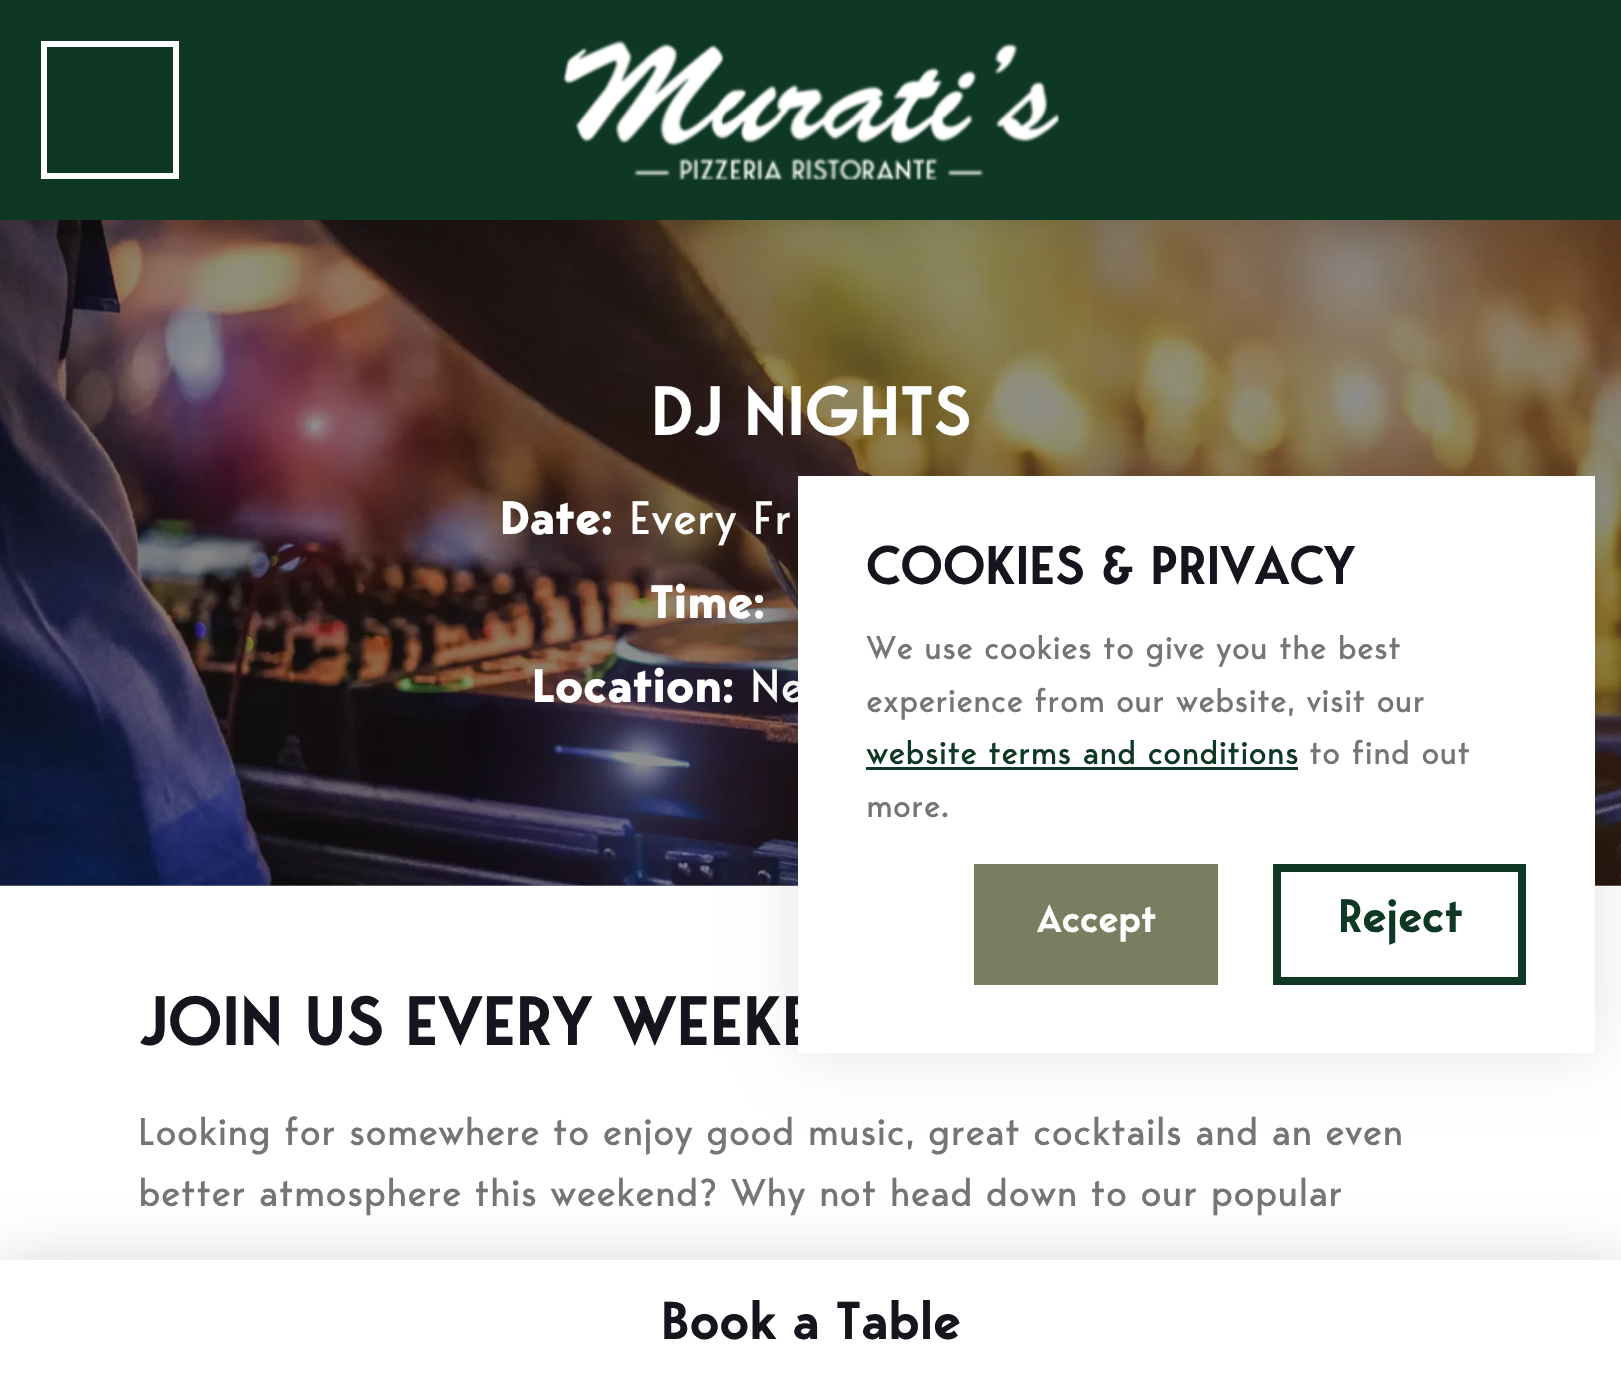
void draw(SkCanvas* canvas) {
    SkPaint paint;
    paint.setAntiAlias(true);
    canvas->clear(0xFFFFFFFF);
    paint.setColor(0xFF8F8F8F);
    canvas->drawRect(SkRect::MakeXYWH(0, 885, 1621, 1), paint);
    canvas->drawImageRect(SkImages::DeferredFromEncodedData(SkData::MakeFromFileName("img1.png")), SkRect::MakeXYWH(0, 220, 1621, 666), SkSamplingOptions());
    SkFont font1(fontMgr->matchFamilyStyle("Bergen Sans", SkFontStyle(600, SkFontStyle::kNormal_Width, SkFontStyle::kUpright_Slant)), 69.25f);
    font1.setSubpixel(true);
    paint.setColor(0xFFFFFFFF);
    canvas->drawString("DJ NIGHTS", 651, 435, font1, paint);
    SkFont font2(fontMgr->matchFamilyStyle("Bergen Sans", SkFontStyle::Bold()), 46.5f);
    font2.setSubpixel(true);
    canvas->drawString("Date:", 500, 534, font2, paint);
    SkFont font3(fontMgr->matchFamilyStyle("Bergen Sans", SkFontStyle::Normal()), 46.5f);
    font3.setSubpixel(true);
    canvas->drawString("Every Fr", 629, 534, font3, paint);
    canvas->drawString("Time:", 650, 618, font2, paint);
    canvas->drawString("Location:", 532, 702, font2, paint);
    canvas->drawString("Ne", 750, 702, font3, paint);
    paint.setColor(0xFF15151D);
    canvas->drawString("JOIN US EVERY WEEKE", 138, 1045, font1, paint);
    SkFont font4(fontMgr->matchFamilyStyle("Bergen Sans", SkFontStyle::Normal()), 38.5f);
    font4.setSubpixel(true);
    paint.setColor(0xFF757575);
    canvas->drawString("Looking for somewhere to enjoy good music, great cocktails and an even", 138, 1145, font4, paint);
    canvas->drawString("better atmosphere this weekend? Why not head down to our popular", 138, 1206, font4, paint);
    paint.setColor(0x26000000);
    paint.setMaskFilter(SkMaskFilter::MakeBlur(kNormal_SkBlurStyle, 20.5f));
    canvas->drawRect(SkRect::MakeXYWH(0, 0, 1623, 220), paint);
    paint.setMaskFilter(nullptr);
    paint.setColor(0xFF0E3824);
    canvas->drawRect(SkRect::MakeXYWH(0, 0, 1621, 220), paint);
    paint.setStyle(SkPaint::kStroke_Style);
    paint.setStrokeWidth(6);
    paint.setColor(0xFFFFFFFF);
    canvas->drawRect(SkRect::MakeXYWH(44, 44, 132, 132), paint);
    canvas->drawImageRect(SkImages::DeferredFromEncodedData(SkData::MakeFromFileName("img2.png")), SkRect::MakeXYWH(563, 40, 496, 140), SkSamplingOptions());
    paint.setStyle(SkPaint::kFill_Style);
    paint.setColor(0x26000000);
    paint.setMaskFilter(SkMaskFilter::MakeBlur(kNormal_SkBlurStyle, 27.5f));
    canvas->drawRect(SkRect::MakeXYWH(0, 1260, 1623, 137), paint);
    paint.setMaskFilter(nullptr);
    paint.setColor(0xFFFFFFFF);
    canvas->drawRect(SkRect::MakeXYWH(0, 1260, 1621, 137), paint);
    SkFont font5(fontMgr->matchFamilyStyle("Bergen Sans", SkFontStyle(600, SkFontStyle::kNormal_Width, SkFontStyle::kUpright_Slant)), 53);
    font5.setSubpixel(true);
    paint.setColor(0xFF15151D);
    canvas->drawString("Book a Table", 661, 1339, font5, paint);
    paint.setColor(0x1A000000);
    paint.setMaskFilter(SkMaskFilter::MakeBlur(kNormal_SkBlurStyle, 27.5f));
    canvas->drawRect(SkRect::MakeXYWH(798, 476, 797, 577), paint);
    paint.setMaskFilter(nullptr);
    paint.setColor(0xFFFFFFFF);
    canvas->drawRect(SkRect::MakeXYWH(798, 476, 797, 577), paint);
    SkFont font6(fontMgr->matchFamilyStyle("Bergen Sans", SkFontStyle(600, SkFontStyle::kNormal_Width, SkFontStyle::kUpright_Slant)), 54);
    font6.setSubpixel(true);
    paint.setColor(0xFF15151D);
    canvas->drawString("COOKIES & PRIVACY", 866, 584, font6, paint);
    SkFont font7(fontMgr->matchFamilyStyle("Bergen Sans", SkFontStyle::Normal()), 32.75f);
    font7.setSubpixel(true);
    paint.setColor(0xFF757575);
    canvas->drawString("We use cookies to give you the best", 866, 659, font7, paint);
    canvas->drawString("experience from our website, visit our", 866, 712, font7, paint);
    paint.setColor(0xFF0E3824);
    canvas->drawString("website terms and conditions", 866, 764, font7, paint);
    canvas->drawRect(SkRect::MakeXYWH(866, 767, 432, 3), paint);
    paint.setColor(0xFF757575);
    canvas->drawString("to find out", 1309, 764, font7, paint);
    canvas->drawString("more.", 866, 817, font7, paint);
    paint.setColor(0xFF7B7D61);
    canvas->drawRect(SkRect::MakeXYWH(974, 864, 244, 121), paint);
    SkFont font8(fontMgr->matchFamilyStyle("Bergen Sans", SkFontStyle(600, SkFontStyle::kNormal_Width, SkFontStyle::kUpright_Slant)), 38.5f);
    font8.setSubpixel(true);
    paint.setColor(0xFFFFFFFF);
    canvas->drawString("Accept", 1037, 932, font8, paint);
    paint.setStyle(SkPaint::kStroke_Style);
    paint.setStrokeWidth(8);
    paint.setColor(0xFF0E3824);
    canvas->drawRect(SkRect::MakeXYWH(1277, 868, 245, 113), paint);
    SkFont font9(fontMgr->matchFamilyStyle("Bergen Sans", SkFontStyle(600, SkFontStyle::kNormal_Width, SkFontStyle::kUpright_Slant)), 46.5f);
    font9.setSubpixel(true);
    paint.setStyle(SkPaint::kFill_Style);
    canvas->drawString("Reject", 1338, 932, font9, paint);
}
